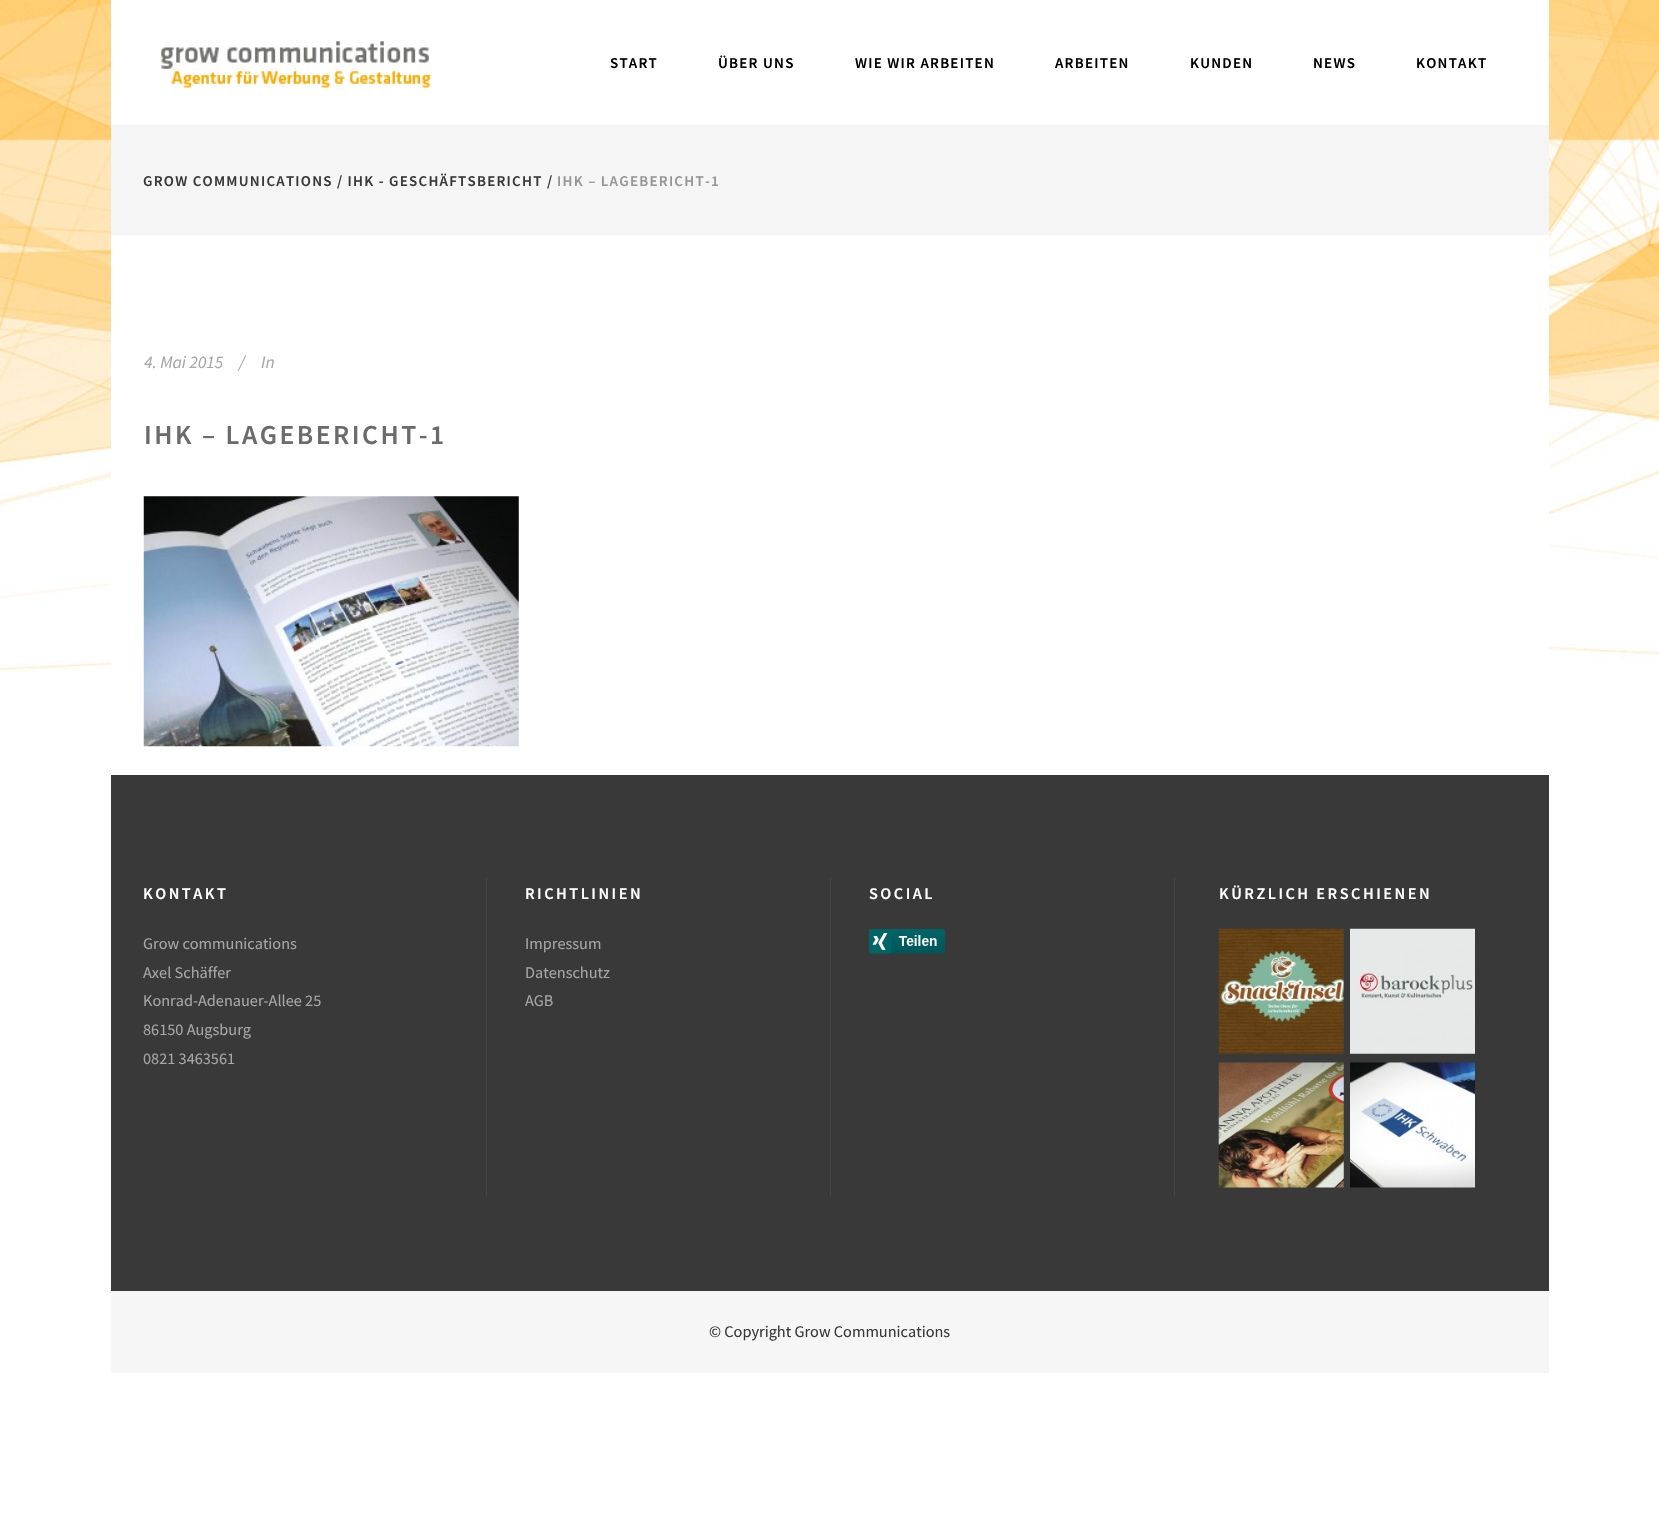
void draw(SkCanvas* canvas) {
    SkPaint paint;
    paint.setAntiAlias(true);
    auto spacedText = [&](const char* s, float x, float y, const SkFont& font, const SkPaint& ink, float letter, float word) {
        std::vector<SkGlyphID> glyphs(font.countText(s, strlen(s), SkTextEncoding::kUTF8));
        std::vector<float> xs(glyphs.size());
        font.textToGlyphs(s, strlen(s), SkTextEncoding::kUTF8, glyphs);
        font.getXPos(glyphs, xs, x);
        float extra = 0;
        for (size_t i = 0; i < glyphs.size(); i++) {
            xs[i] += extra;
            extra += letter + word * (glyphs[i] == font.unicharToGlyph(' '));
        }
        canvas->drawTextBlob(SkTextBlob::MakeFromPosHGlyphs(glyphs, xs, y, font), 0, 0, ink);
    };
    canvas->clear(0xFFFFFFFF);
    canvas->drawImageRect(SkImages::DeferredFromEncodedData(SkData::MakeFromFileName("img1.png")), SkRect::MakeXYWH(0, 0, 1659, 671), SkSamplingOptions());
    paint.setColor(0xFFFFFFFF);
    canvas->drawRect(SkRect::MakeXYWH(111, 0, 1438, 125), paint);
    canvas->drawImageRect(SkImages::DeferredFromEncodedData(SkData::MakeFromFileName("img2.png")), SkRect::MakeXYWH(161, 41, 271, 47), SkSamplingOptions());
    SkFont font1(fontMgr->matchFamilyStyle("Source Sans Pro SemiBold", SkFontStyle(600, SkFontStyle::kNormal_Width, SkFontStyle::kUpright_Slant)), 15);
    font1.setSubpixel(true);
    paint.setColor(0xFF000000);
    spacedText("START", 610, 68, font1, paint, 1.25f, 0);
    spacedText("ÜBER UNS", 718, 68, font1, paint, 1.25f, 0);
    spacedText("WIE WIR ARBEITEN", 855, 68, font1, paint, 1.25f, 0);
    spacedText("ARBEITEN", 1055, 68, font1, paint, 1.25f, 0);
    spacedText("KUNDEN", 1190, 68, font1, paint, 1.25f, 0);
    spacedText("NEWS", 1313, 68, font1, paint, 1.25f, 0);
    spacedText("KONTAKT", 1416, 68, font1, paint, 1.25f, 0);
    paint.setColor(0xFFFFFFFF);
    canvas->drawRect(SkRect::MakeXYWH(111, 235, 1438, 435), paint);
    paint.setColor(0xFFF5F5F5);
    canvas->drawRect(SkRect::MakeXYWH(111, 125, 1438, 110), paint);
    paint.setColor(0xFF393939);
    spacedText("GROW COMMUNICATIONS / IHK - GESCHÄFTSBERICHT /", 143, 186, font1, paint, 1.25f, 0);
    paint.setColor(0xFF959595);
    spacedText("IHK – LAGEBERICHT-1", 557, 186, font1, paint, 1.25f, 0);
    SkFont font2(fontMgr->matchFamilyStyle("Source Sans Pro", SkFontStyle::Italic()), 17.5f);
    font2.setSubpixel(true);
    paint.setColor(0xFFA7A6A6);
    canvas->drawString("4. Mai 2015", 144, 368, font2, paint);
    canvas->drawString("/", 239, 368, font2, paint);
    canvas->drawString("In", 261, 368, font2, paint);
    SkFont font3(fontMgr->matchFamilyStyle("Source Sans Pro SemiBold", SkFontStyle(600, SkFontStyle::kNormal_Width, SkFontStyle::kUpright_Slant)), 27.5f);
    font3.setSubpixel(true);
    paint.setColor(0xFF6B6B6B);
    spacedText("IHK – LAGEBERICHT-1", 144, 444, font3, paint, 2.5f, 0);
    canvas->drawImageRect(SkImages::DeferredFromEncodedData(SkData::MakeFromFileName("img3.png")), SkRect::MakeXYWH(143, 496, 376, 251), SkSamplingOptions());
    paint.setColor(0xFF393939);
    canvas->drawRect(SkRect::MakeXYWH(111, 775, 1438, 516), paint);
    SkFont font4(fontMgr->matchFamilyStyle("Source Sans Pro SemiBold", SkFontStyle(600, SkFontStyle::kNormal_Width, SkFontStyle::kUpright_Slant)), 16.25f);
    font4.setSubpixel(true);
    paint.setColor(0xFFFFFFFF);
    spacedText("KONTAKT", 143, 899, font4, paint, 2.5f, 0);
    SkFont font5(fontMgr->matchFamilyStyle("Source Sans Pro", SkFontStyle::Normal()), 16.25f);
    font5.setSubpixel(true);
    paint.setColor(0xFFA7A6A6);
    canvas->drawString("Grow communications", 143, 949, font5, paint);
    canvas->drawString("Axel Schäffer", 143, 978, font5, paint);
    canvas->drawString("Konrad-Adenauer-Allee 25", 143, 1006, font5, paint);
    canvas->drawString("86150 Augsburg", 143, 1035, font5, paint);
    canvas->drawString("0821 3463561", 143, 1064, font5, paint);
    paint.setColor(0xFF444444);
    canvas->drawRect(SkRect::MakeXYWH(486, 878, 1, 318), paint);
    paint.setColor(0xFFFFFFFF);
    spacedText("RICHTLINIEN", 525, 899, font4, paint, 2.5f, 0);
    paint.setColor(0xFFA7A6A6);
    canvas->drawString("Impressum", 525, 949, font5, paint);
    canvas->drawString("Datenschutz", 525, 978, font5, paint);
    canvas->drawString("AGB", 525, 1006, font5, paint);
    paint.setColor(0xFF444444);
    canvas->drawRect(SkRect::MakeXYWH(830, 878, 1, 318), paint);
    paint.setColor(0xFFFFFFFF);
    spacedText("SOCIAL", 869, 899, font4, paint, 2.5f, 0);
    canvas->drawImageRect(SkImages::DeferredFromEncodedData(SkData::MakeFromFileName("img4.png")), SkRect::MakeXYWH(869, 929, 76, 25), SkSamplingOptions());
    paint.setColor(0xFF444444);
    canvas->drawRect(SkRect::MakeXYWH(1174, 878, 1, 318), paint);
    paint.setColor(0xFFFFFFFF);
    spacedText("KÜRZLICH ERSCHIENEN", 1219, 899, font4, paint, 2.5f, 0);
    canvas->drawImageRect(SkImages::DeferredFromEncodedData(SkData::MakeFromFileName("img5.png")), SkRect::MakeXYWH(1218, 928, 126, 126), SkSamplingOptions());
    canvas->drawImageRect(SkImages::DeferredFromEncodedData(SkData::MakeFromFileName("img6.png")), SkRect::MakeXYWH(1350, 928, 125, 126), SkSamplingOptions());
    canvas->drawImageRect(SkImages::DeferredFromEncodedData(SkData::MakeFromFileName("img7.png")), SkRect::MakeXYWH(1218, 1062, 126, 126), SkSamplingOptions());
    canvas->drawImageRect(SkImages::DeferredFromEncodedData(SkData::MakeFromFileName("img8.png")), SkRect::MakeXYWH(1350, 1062, 125, 126), SkSamplingOptions());
    paint.setColor(0xFFF6F6F6);
    canvas->drawRect(SkRect::MakeXYWH(111, 1291, 1438, 82), paint);
    paint.setColor(0xFF393939);
    canvas->drawString("© Copyright Grow Communications", 709, 1337, font5, paint);
}
